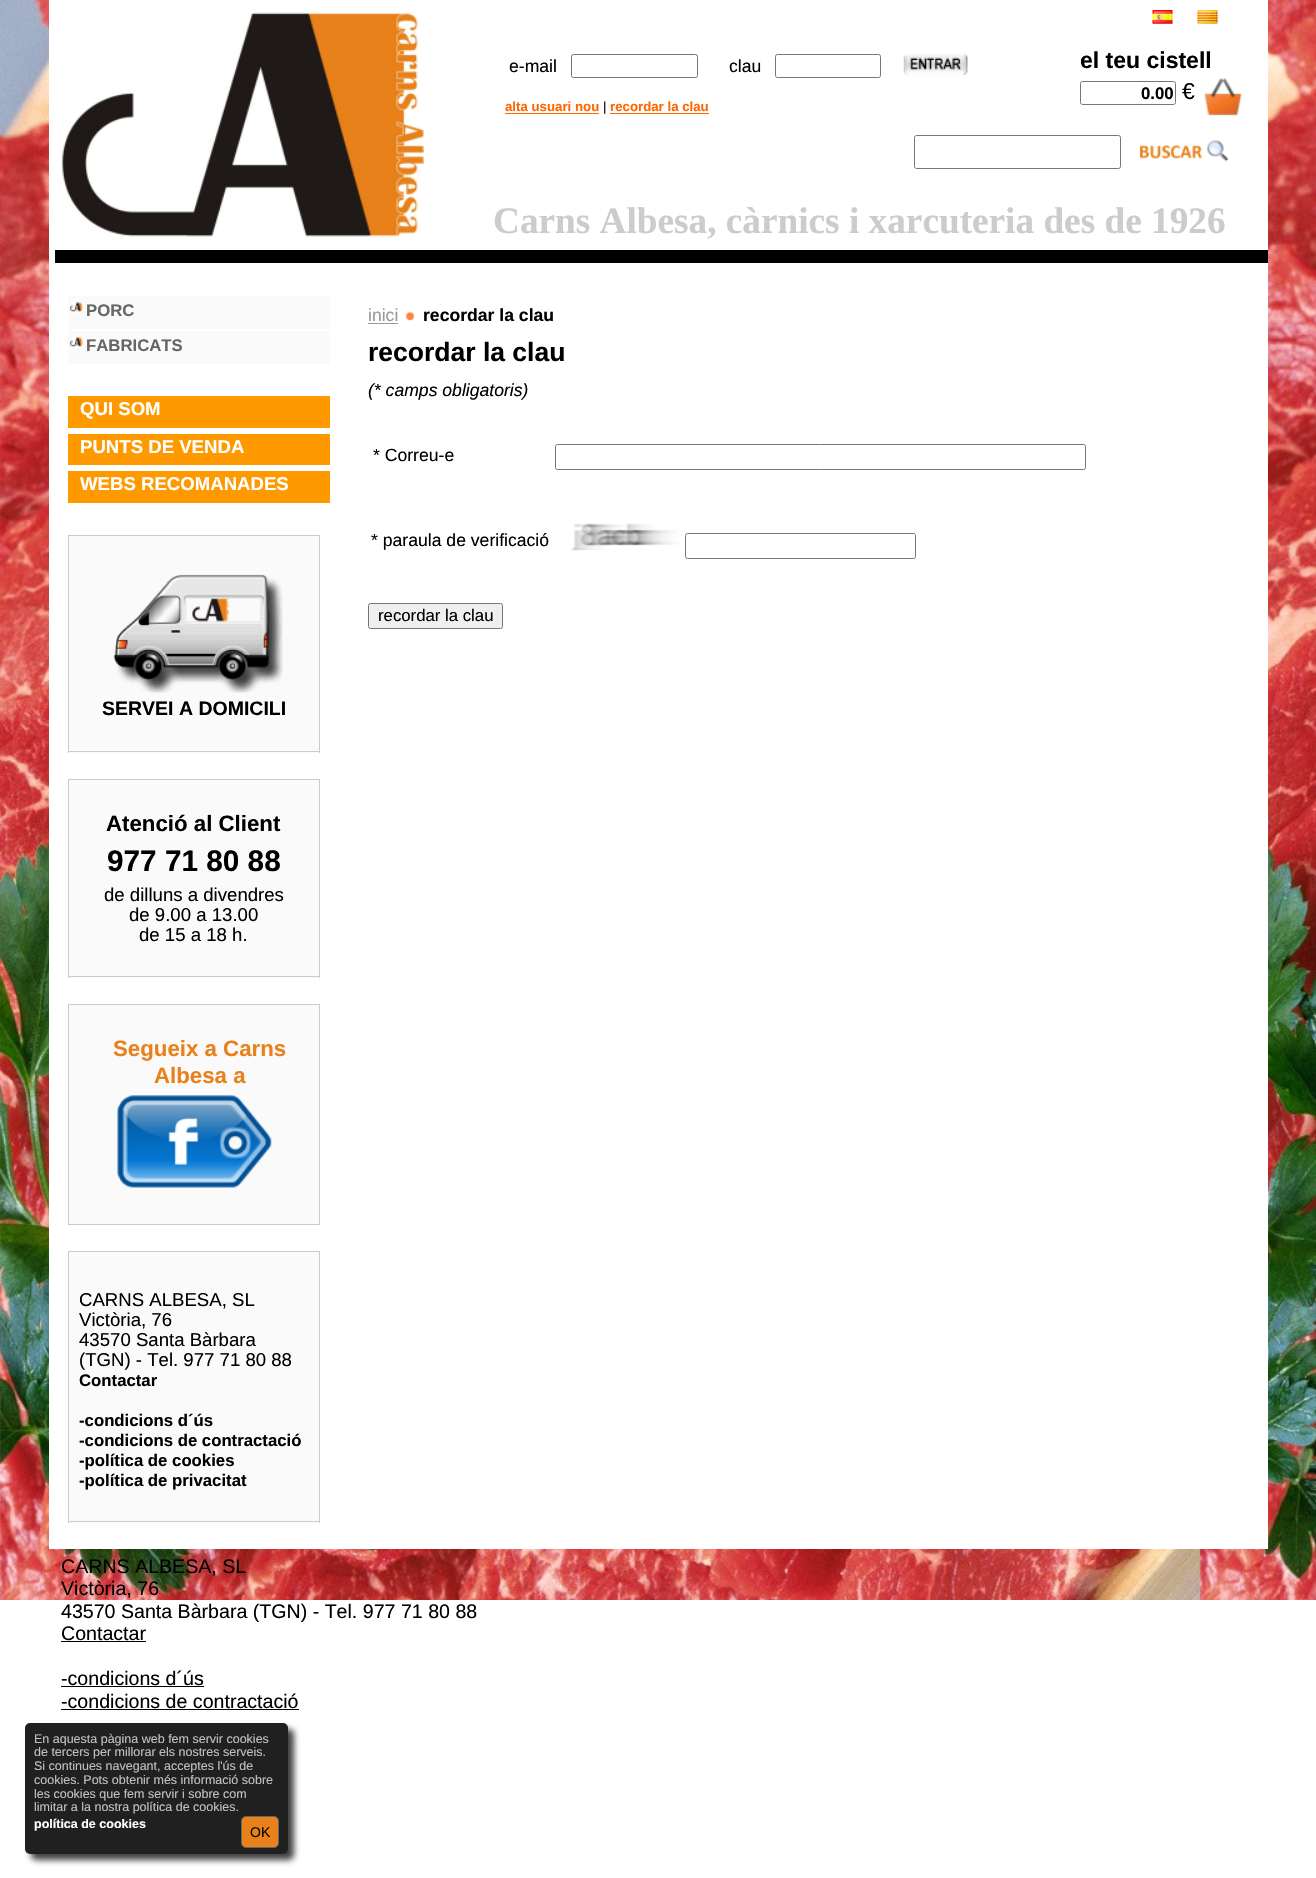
void draw(SkCanvas* canvas) {
    SkPaint paint;
    paint.setAntiAlias(true);
    canvas->clear(0xFFFFFFFF);
    canvas->drawImageRect(SkImages::DeferredFromEncodedData(SkData::MakeFromFileName("img1.png")), SkRect::MakeXYWH(0, 0, 1316, 1600), SkSamplingOptions());
    paint.setColor(0xFFFFFFFF);
    canvas->drawRect(SkRect::MakeXYWH(49, 0, 1219, 1549), paint);
    canvas->drawImageRect(SkImages::DeferredFromEncodedData(SkData::MakeFromFileName("img2.png")), SkRect::MakeXYWH(61, 12, 364, 225), SkSamplingOptions());
    SkFont font1(fontMgr->matchFamilyStyle("Liberation Sans", SkFontStyle::Normal()), 17.6f);
    font1.setSubpixel(true);
    paint.setColor(0xFF000000);
    canvas->drawString("e-mail", 509, 72, font1, paint);
    paint.setStyle(SkPaint::kStroke_Style);
    paint.setStrokeWidth(1);
    paint.setColor(0xFF767676);
    canvas->drawRoundRect(SkRect::MakeXYWH(571.5f, 54.5f, 126, 23), 2, 2, paint);
    paint.setStyle(SkPaint::kFill_Style);
    paint.setColor(0xFF000000);
    canvas->drawString("clau", 729, 72, font1, paint);
    paint.setStyle(SkPaint::kStroke_Style);
    paint.setColor(0xFF767676);
    canvas->drawRoundRect(SkRect::MakeXYWH(775.5f, 54.5f, 105, 23), 2, 2, paint);
    canvas->drawImageRect(SkImages::DeferredFromEncodedData(SkData::MakeFromFileName("img3.png")), SkRect::MakeXYWH(903, 53, 65, 23), SkSamplingOptions());
    SkFont font2(fontMgr->matchFamilyStyle("Liberation Sans", SkFontStyle::Bold()), 13.25f);
    font2.setSubpixel(true);
    paint.setStyle(SkPaint::kFill_Style);
    paint.setColor(0xFFFF6600);
    canvas->drawString("alta usuari nou", 505, 111, font2, paint);
    canvas->drawRect(SkRect::MakeXYWH(505, 113, 94, 1), paint);
    SkFont font3(fontMgr->matchFamilyStyle("Liberation Sans", SkFontStyle::Normal()), 13.25f);
    font3.setSubpixel(true);
    paint.setColor(0xFF000000);
    canvas->drawString("|", 603, 111, font3, paint);
    paint.setColor(0xFFFF6600);
    canvas->drawString("recordar la clau", 610, 111, font2, paint);
    canvas->drawRect(SkRect::MakeXYWH(610, 113, 99, 1), paint);
    canvas->drawImageRect(SkImages::DeferredFromEncodedData(SkData::MakeFromFileName("img4.png")), SkRect::MakeXYWH(1152, 10, 21, 14), SkSamplingOptions());
    canvas->drawImageRect(SkImages::DeferredFromEncodedData(SkData::MakeFromFileName("img5.png")), SkRect::MakeXYWH(1197, 10, 21, 14), SkSamplingOptions());
    SkFont font4(fontMgr->matchFamilyStyle("Liberation Sans", SkFontStyle::Bold()), 23);
    font4.setSubpixel(true);
    paint.setColor(0xFF000000);
    canvas->drawString("el teu cistell", 1080, 68, font4, paint);
    paint.setStyle(SkPaint::kStroke_Style);
    paint.setColor(0xFF767676);
    canvas->drawRoundRect(SkRect::MakeXYWH(1080.5f, 81.5f, 95, 23), 2, 2, paint);
    SkFont font5(fontMgr->matchFamilyStyle("Liberation Sans", SkFontStyle::Bold()), 16.75f);
    font5.setSubpixel(true);
    paint.setStyle(SkPaint::kFill_Style);
    paint.setColor(0xFF000000);
    canvas->drawString("0.00", 1141, 99, font5, paint);
    SkFont font6(fontMgr->matchFamilyStyle("Liberation Sans", SkFontStyle::Normal()), 23);
    font6.setSubpixel(true);
    canvas->drawString("€", 1182, 99, font6, paint);
    canvas->drawImageRect(SkImages::DeferredFromEncodedData(SkData::MakeFromFileName("img6.png")), SkRect::MakeXYWH(1204, 78, 38, 38), SkSamplingOptions());
    paint.setStyle(SkPaint::kStroke_Style);
    paint.setColor(0xFF767676);
    canvas->drawRoundRect(SkRect::MakeXYWH(914.5f, 135.5f, 206, 33), 2, 2, paint);
    canvas->drawImageRect(SkImages::DeferredFromEncodedData(SkData::MakeFromFileName("img7.png")), SkRect::MakeXYWH(1139, 140, 90, 22), SkSamplingOptions());
    SkFont font7(fontMgr->matchFamilyStyle("Liberation Serif", SkFontStyle::Bold()), 37.25f);
    font7.setSubpixel(true);
    paint.setStyle(SkPaint::kFill_Style);
    paint.setColor(0xFFCCCCCC);
    canvas->drawString("Carns Albesa, càrnics i xarcuteria des de 1926", 493, 233, font7, paint);
    paint.setColor(0xFF000000);
    canvas->drawRect(SkRect::MakeXYWH(55, 250, 1213, 13), paint);
    paint.setColor(0xFFFAFAFA);
    canvas->drawRect(SkRect::MakeXYWH(68, 296, 262, 33), paint);
    canvas->drawImageRect(SkImages::DeferredFromEncodedData(SkData::MakeFromFileName("img8.png")), SkRect::MakeXYWH(69, 302, 14, 11), SkSamplingOptions());
    paint.setColor(0xFF666666);
    canvas->drawString("PORC", 86, 316, font5, paint);
    paint.setColor(0xFFFAFAFA);
    canvas->drawRect(SkRect::MakeXYWH(68, 331, 262, 33), paint);
    canvas->drawImageRect(SkImages::DeferredFromEncodedData(SkData::MakeFromFileName("img8.png")), SkRect::MakeXYWH(69, 337, 14, 11), SkSamplingOptions());
    paint.setColor(0xFF666666);
    canvas->drawString("FABRICATS", 86, 351, font5, paint);
    paint.setColor(0xFFFF9900);
    canvas->drawRect(SkRect::MakeXYWH(68, 396, 262, 32), paint);
    SkFont font8(fontMgr->matchFamilyStyle("Liberation Sans", SkFontStyle::Bold()), 18.6f);
    font8.setSubpixel(true);
    paint.setColor(0xFFFFFFFF);
    canvas->drawString("QUI SOM", 80, 415, font8, paint);
    paint.setColor(0xFFFF9900);
    canvas->drawRect(SkRect::MakeXYWH(68, 434, 262, 31), paint);
    paint.setColor(0xFFFFFFFF);
    canvas->drawString("PUNTS DE VENDA", 80, 453, font8, paint);
    paint.setColor(0xFFFF9900);
    canvas->drawRect(SkRect::MakeXYWH(68, 471, 262, 32), paint);
    paint.setColor(0xFFFFFFFF);
    canvas->drawString("WEBS RECOMANADES", 80, 490, font8, paint);
    paint.setColor(0xFFFAFAFA);
    canvas->drawRect(SkRect::MakeXYWH(69, 536, 250, 217), paint);
    paint.setColor(0xFFCCCCCC);
    canvas->drawRect(SkRect::MakeXYWH(68, 535, 252, 1), paint);
    canvas->drawRect(SkRect::MakeXYWH(319, 535, 1, 218), paint);
    canvas->drawRect(SkRect::MakeXYWH(68, 535, 1, 191), paint);
    canvas->drawImageRect(SkImages::DeferredFromEncodedData(SkData::MakeFromFileName("img9.png")), SkRect::MakeXYWH(113, 574, 170, 119), SkSamplingOptions());
    SkFont font9(fontMgr->matchFamilyStyle("Liberation Sans", SkFontStyle::Bold()), 19.5f);
    font9.setSubpixel(true);
    paint.setColor(0xFF000000);
    canvas->drawString("SERVEI A DOMICILI", 102, 715, font9, paint);
    paint.setColor(0xFFCCCCCC);
    canvas->drawRect(SkRect::MakeXYWH(68, 751, 252, 1), paint);
    canvas->drawRect(SkRect::MakeXYWH(68, 726, 1, 27), paint);
    paint.setColor(0xFFFAFAFA);
    canvas->drawRect(SkRect::MakeXYWH(69, 780, 250, 198), paint);
    paint.setColor(0xFFCCCCCC);
    canvas->drawRect(SkRect::MakeXYWH(68, 779, 252, 1), paint);
    canvas->drawRect(SkRect::MakeXYWH(319, 779, 1, 199), paint);
    canvas->drawRect(SkRect::MakeXYWH(68, 779, 1, 172), paint);
    SkFont font10(fontMgr->matchFamilyStyle("Liberation Sans", SkFontStyle::Bold()), 22.25f);
    font10.setSubpixel(true);
    paint.setColor(0xFF000000);
    canvas->drawString("Atenció al Client", 106, 831, font10, paint);
    SkFont font11(fontMgr->matchFamilyStyle("Liberation Sans", SkFontStyle::Bold()), 29.75f);
    font11.setSubpixel(true);
    canvas->drawString("977 71 80 88", 107, 871, font11, paint);
    SkFont font12(fontMgr->matchFamilyStyle("Liberation Sans", SkFontStyle::Normal()), 18.6f);
    font12.setSubpixel(true);
    canvas->drawString("de dilluns a divendres", 104, 901, font12, paint);
    canvas->drawString("de 9.00 a 13.00", 129, 921, font12, paint);
    canvas->drawString("de 15 a 18 h.", 139, 941, font12, paint);
    paint.setColor(0xFFCCCCCC);
    canvas->drawRect(SkRect::MakeXYWH(68, 976, 252, 1), paint);
    canvas->drawRect(SkRect::MakeXYWH(68, 951, 1, 27), paint);
    paint.setColor(0xFFFAFAFA);
    canvas->drawRect(SkRect::MakeXYWH(69, 1005, 250, 219), paint);
    paint.setColor(0xFFCCCCCC);
    canvas->drawRect(SkRect::MakeXYWH(68, 1004, 252, 1), paint);
    canvas->drawRect(SkRect::MakeXYWH(319, 1004, 1, 221), paint);
    canvas->drawRect(SkRect::MakeXYWH(68, 1004, 1, 195), paint);
    paint.setColor(0xFFE8811A);
    canvas->drawString("Segueix a Carns", 113, 1056, font10, paint);
    canvas->drawString("Albesa a", 154, 1083, font10, paint);
    canvas->drawImageRect(SkImages::DeferredFromEncodedData(SkData::MakeFromFileName("img10.png")), SkRect::MakeXYWH(117, 1095, 155, 93), SkSamplingOptions());
    paint.setColor(0xFFCCCCCC);
    canvas->drawRect(SkRect::MakeXYWH(68, 1224, 252, 1), paint);
    canvas->drawRect(SkRect::MakeXYWH(68, 1199, 1, 26), paint);
    paint.setColor(0xFFFAFAFA);
    canvas->drawRect(SkRect::MakeXYWH(69, 1252, 250, 271), paint);
    paint.setColor(0xFFCCCCCC);
    canvas->drawRect(SkRect::MakeXYWH(68, 1251, 252, 1), paint);
    canvas->drawRect(SkRect::MakeXYWH(319, 1251, 1, 272), paint);
    canvas->drawRect(SkRect::MakeXYWH(68, 1251, 1, 245), paint);
    paint.setColor(0xFF000000);
    canvas->drawString("CARNS ALBESA, SL", 79, 1306, font12, paint);
    canvas->drawString("Victòria, 76", 79, 1326, font12, paint);
    canvas->drawString("43570 Santa Bàrbara", 79, 1346, font12, paint);
    canvas->drawString("(TGN) - Tel. 977 71 80 88", 79, 1366, font12, paint);
    canvas->drawString("Contactar", 79, 1386, font5, paint);
    canvas->drawString("-condicions d´ús", 79, 1426, font5, paint);
    canvas->drawString("-condicions de contractació", 79, 1446, font5, paint);
    canvas->drawString("-política de cookies", 79, 1466, font5, paint);
    canvas->drawString("-política de privacitat", 79, 1486, font5, paint);
    paint.setColor(0xFFCCCCCC);
    canvas->drawRect(SkRect::MakeXYWH(68, 1521, 252, 1), paint);
    canvas->drawRect(SkRect::MakeXYWH(68, 1496, 1, 27), paint);
    canvas->drawImageRect(SkImages::DeferredFromEncodedData(SkData::MakeFromFileName("img11.png")), SkRect::MakeXYWH(406, 312, 8, 9), SkSamplingOptions());
    paint.setColor(0xFF999999);
    canvas->drawString("inici", 368, 321, font1, paint);
    canvas->drawRect(SkRect::MakeXYWH(368, 323, 30, 1), paint);
    SkFont font13(fontMgr->matchFamilyStyle("Liberation Sans", SkFontStyle::Bold()), 17.6f);
    font13.setSubpixel(true);
    paint.setColor(0xFF000000);
    canvas->drawString("recordar la clau", 423, 321, font13, paint);
    SkFont font14(fontMgr->matchFamilyStyle("Liberation Sans", SkFontStyle::Bold()), 26.5f);
    font14.setSubpixel(true);
    canvas->drawString("recordar la clau", 368, 361, font14, paint);
    SkFont font15(fontMgr->matchFamilyStyle("Liberation Sans", SkFontStyle::Italic()), 17.6f);
    font15.setSubpixel(true);
    canvas->drawString("(* camps obligatoris)", 368, 396, font15, paint);
    canvas->drawString("* Correu-e", 373, 461, font1, paint);
    paint.setStyle(SkPaint::kStroke_Style);
    paint.setColor(0xFF767676);
    canvas->drawRoundRect(SkRect::MakeXYWH(555.5f, 444.5f, 530, 25), 2, 2, paint);
    paint.setStyle(SkPaint::kFill_Style);
    paint.setColor(0xFF000000);
    canvas->drawString("* paraula de verificació", 371, 546, font1, paint);
    canvas->drawImageRect(SkImages::DeferredFromEncodedData(SkData::MakeFromFileName("img12.png")), SkRect::MakeXYWH(571, 523, 108, 28), SkSamplingOptions());
    paint.setStyle(SkPaint::kStroke_Style);
    paint.setColor(0xFF767676);
    canvas->drawRoundRect(SkRect::MakeXYWH(685.5f, 533.5f, 230, 25), 2, 2, paint);
    paint.setStyle(SkPaint::kFill_Style);
    paint.setColor(0xFFEFEFEF);
    canvas->drawRoundRect(SkRect::MakeXYWH(368.5f, 603.5f, 134, 25), 2, 2, paint);
    paint.setStyle(SkPaint::kStroke_Style);
    paint.setColor(0xFF767676);
    canvas->drawRoundRect(SkRect::MakeXYWH(368.5f, 603.5f, 134, 25), 2, 2, paint);
    SkFont font16(fontMgr->matchFamilyStyle("Liberation Sans", SkFontStyle::Normal()), 16.75f);
    font16.setSubpixel(true);
    paint.setStyle(SkPaint::kFill_Style);
    paint.setColor(0xFF000000);
    canvas->drawString("recordar la clau", 378, 621, font16, paint);
    paint.setColor(0xBF000000);
    paint.setMaskFilter(SkMaskFilter::MakeBlur(kNormal_SkBlurStyle, 3));
    canvas->drawRoundRect(SkRect::MakeXYWH(31, 1729, 263, 131), 5, 5, paint);
    paint.setMaskFilter(nullptr);
    paint.setColor(0xFF202020);
    canvas->drawRoundRect(SkRect::MakeXYWH(25, 1723, 263, 131), 5, 5, paint);
    SkFont font17(fontMgr->matchFamilyStyle("Liberation Sans", SkFontStyle::Normal()), 12.5f);
    font17.setSubpixel(true);
    paint.setColor(0xFFC0C0C0);
    canvas->drawString("En aquesta pàgina web fem servir cookies", 34, 1743, font17, paint);
    canvas->drawString("de tercers per millorar els nostres serveis.", 34, 1756, font17, paint);
    canvas->drawString("Si continues navegant, acceptes l'ús de", 34, 1770, font17, paint);
    canvas->drawString("cookies. Pots obtenir més informació sobre", 34, 1784, font17, paint);
    canvas->drawString("les cookies que fem servir i sobre com", 34, 1798, font17, paint);
    canvas->drawString("limitar a la nostra política de cookies.", 34, 1811, font17, paint);
    SkFont font18(fontMgr->matchFamilyStyle("Liberation Sans", SkFontStyle::Bold()), 12.5f);
    font18.setSubpixel(true);
    paint.setColor(0xFFFFFFFF);
    canvas->drawString("política de cookies", 34, 1828, font18, paint);
    paint.setColor(0xFFE8811A);
    canvas->drawRoundRect(SkRect::MakeXYWH(241.5f, 1816.5f, 37, 31), 4.5f, 4.5f, paint);
    paint.setStyle(SkPaint::kStroke_Style);
    paint.setColor(0xFF666666);
    canvas->drawRoundRect(SkRect::MakeXYWH(241.5f, 1816.5f, 37, 31), 4.5f, 4.5f, paint);
    SkFont font19(fontMgr->matchFamilyStyle("Liberation Sans", SkFontStyle::Normal()), 14);
    font19.setSubpixel(true);
    paint.setStyle(SkPaint::kFill_Style);
    paint.setColor(0xFF000000);
    canvas->drawString("OK", 250, 1837, font19, paint);
    SkFont font20(fontMgr->matchFamilyStyle("Liberation Sans", SkFontStyle::Normal()), 19.6f);
    font20.setSubpixel(true);
    canvas->drawString("CARNS ALBESA, SL", 61, 1573, font20, paint);
    canvas->drawString("Victòria, 76", 61, 1595, font20, paint);
    canvas->drawString("43570 Santa Bàrbara (TGN) - Tel. 977 71 80 88", 61, 1618, font20, paint);
    canvas->drawString("Contactar", 61, 1640, font20, paint);
    canvas->drawRect(SkRect::MakeXYWH(61, 1641, 85, 1), paint);
    canvas->drawString("-condicions d´ús", 61, 1685, font20, paint);
    canvas->drawRect(SkRect::MakeXYWH(61, 1686, 143, 1), paint);
    canvas->drawString("-condicions de contractació", 61, 1708, font20, paint);
    canvas->drawRect(SkRect::MakeXYWH(61, 1709, 238, 1), paint);
}
